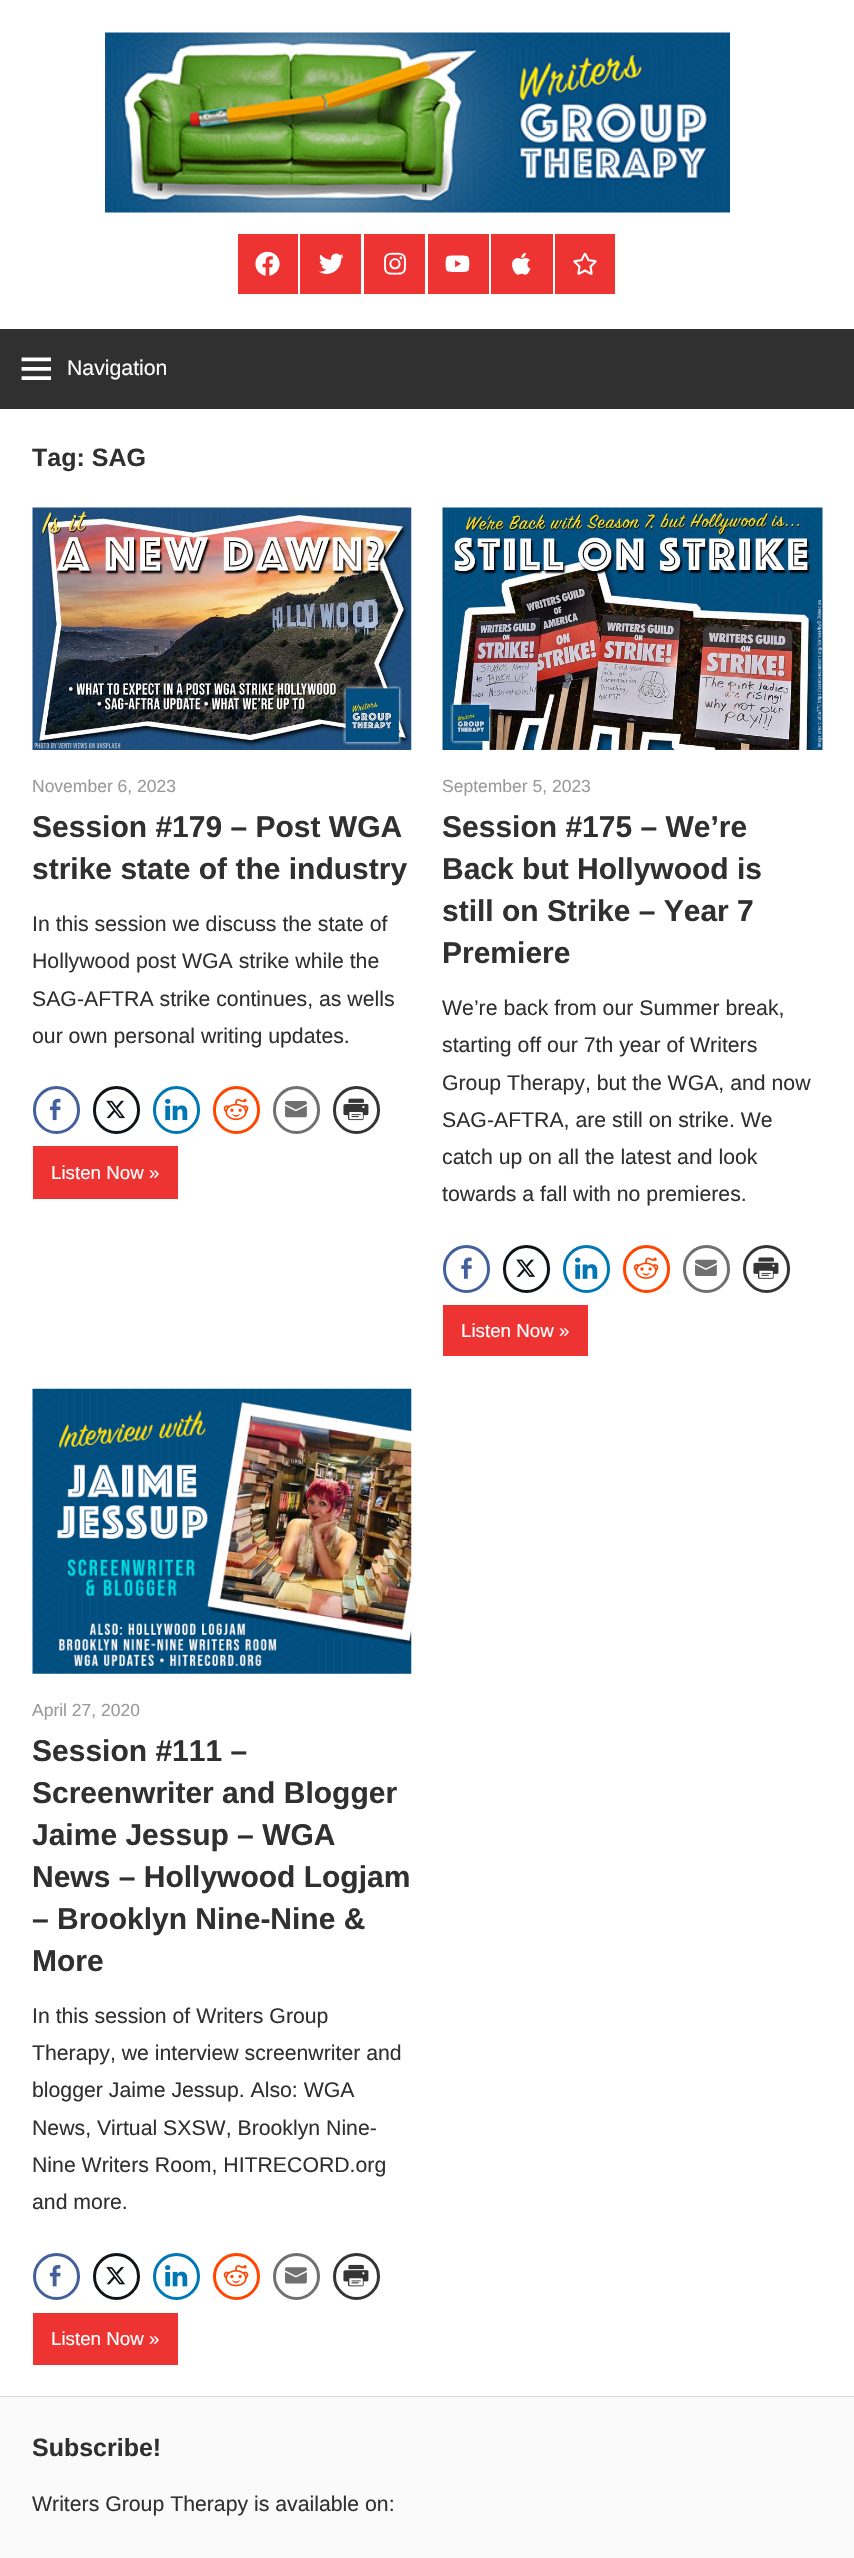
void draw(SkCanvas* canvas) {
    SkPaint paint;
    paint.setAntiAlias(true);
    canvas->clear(0xFFFFFFFF);
    canvas->drawImageRect(SkImages::DeferredFromEncodedData(SkData::MakeFromFileName("img1.png")), SkRect::MakeXYWH(105, 32, 625, 181), SkSamplingOptions());
    paint.setColor(0xFFEE3333);
    canvas->drawRect(SkRect::MakeXYWH(238, 234, 60, 60), paint);
    canvas->drawImageRect(SkImages::DeferredFromEncodedData(SkData::MakeFromFileName("img2.png")), SkRect::MakeXYWH(255, 251, 25, 25), SkSamplingOptions());
    canvas->drawRect(SkRect::MakeXYWH(300, 234, 61, 60), paint);
    canvas->drawImageRect(SkImages::DeferredFromEncodedData(SkData::MakeFromFileName("img3.png")), SkRect::MakeXYWH(319, 253, 25, 21), SkSamplingOptions());
    canvas->drawRect(SkRect::MakeXYWH(364, 234, 61, 60), paint);
    canvas->drawImageRect(SkImages::DeferredFromEncodedData(SkData::MakeFromFileName("img4.png")), SkRect::MakeXYWH(384, 252, 22, 23), SkSamplingOptions());
    canvas->drawRect(SkRect::MakeXYWH(428, 234, 61, 60), paint);
    canvas->drawImageRect(SkImages::DeferredFromEncodedData(SkData::MakeFromFileName("img5.png")), SkRect::MakeXYWH(445, 255, 25, 17), SkSamplingOptions());
    canvas->drawRect(SkRect::MakeXYWH(491, 234, 62, 60), paint);
    canvas->drawImageRect(SkImages::DeferredFromEncodedData(SkData::MakeFromFileName("img6.png")), SkRect::MakeXYWH(512, 252, 19, 23), SkSamplingOptions());
    canvas->drawRect(SkRect::MakeXYWH(555, 234, 60, 60), paint);
    canvas->drawImageRect(SkImages::DeferredFromEncodedData(SkData::MakeFromFileName("img7.png")), SkRect::MakeXYWH(573, 252, 24, 23), SkSamplingOptions());
    paint.setColor(0xFF303030);
    canvas->drawRect(SkRect::MakeXYWH(0, 329, 854, 80), paint);
    canvas->drawImageRect(SkImages::DeferredFromEncodedData(SkData::MakeFromFileName("img8.png")), SkRect::MakeXYWH(21, 357, 30, 23), SkSamplingOptions());
    SkFont font1(fontMgr->matchFamilyStyle("Liberation Sans", SkFontStyle::Normal()), 21.25f);
    font1.setSubpixel(true);
    paint.setColor(0xFFFFFFFF);
    canvas->drawString("Navigation", 67, 375, font1, paint);
    SkFont font2(fontMgr->matchFamilyStyle("Liberation Sans", SkFontStyle::Bold()), 25);
    font2.setSubpixel(true);
    paint.setColor(0xFF303030);
    canvas->drawString("Tag: SAG", 32, 466, font2, paint);
    canvas->drawImageRect(SkImages::DeferredFromEncodedData(SkData::MakeFromFileName("img9.png")), SkRect::MakeXYWH(32, 507, 380, 243), SkSamplingOptions());
    SkFont font3(fontMgr->matchFamilyStyle("Liberation Sans", SkFontStyle::Normal()), 17.5f);
    font3.setSubpixel(true);
    paint.setColor(0xFF999999);
    canvas->drawString("November 6, 2023", 32, 792, font3, paint);
    SkFont font4(fontMgr->matchFamilyStyle("Liberation Sans", SkFontStyle::Bold()), 30);
    font4.setSubpixel(true);
    paint.setColor(0xFF303030);
    canvas->drawString("Session #179 – Post WGA", 32, 837, font4, paint);
    canvas->drawString("strike state of the industry", 32, 879, font4, paint);
    canvas->drawString("In this session we discuss the state of", 32, 931, font1, paint);
    canvas->drawString("Hollywood post WGA strike while the", 32, 968, font1, paint);
    canvas->drawString("SAG-AFTRA strike continues, as wells", 32, 1006, font1, paint);
    canvas->drawString("our own personal writing updates.", 32, 1043, font1, paint);
    paint.setStyle(SkPaint::kStroke_Style);
    paint.setStrokeWidth(3);
    paint.setColor(0xFF43609C);
    canvas->drawRoundRect(SkRect::MakeXYWH(34.5f, 1087.5f, 44, 45), 22, 22, paint);
    canvas->drawImageRect(SkImages::DeferredFromEncodedData(SkData::MakeFromFileName("img10.png")), SkRect::MakeXYWH(50, 1098, 11, 23), SkSamplingOptions());
    paint.setColor(0xFF0F1419);
    canvas->drawRoundRect(SkRect::MakeXYWH(94.5f, 1087.5f, 44, 45), 22, 22, paint);
    canvas->drawImageRect(SkImages::DeferredFromEncodedData(SkData::MakeFromFileName("img11.png")), SkRect::MakeXYWH(106, 1100, 19, 19), SkSamplingOptions());
    paint.setColor(0xFF0077B5);
    canvas->drawRoundRect(SkRect::MakeXYWH(154.5f, 1087.5f, 44, 45), 22, 22, paint);
    canvas->drawImageRect(SkImages::DeferredFromEncodedData(SkData::MakeFromFileName("img12.png")), SkRect::MakeXYWH(165, 1098, 23, 23), SkSamplingOptions());
    paint.setColor(0xFFFF4500);
    canvas->drawRoundRect(SkRect::MakeXYWH(214.5f, 1087.5f, 44, 45), 22, 22, paint);
    canvas->drawImageRect(SkImages::DeferredFromEncodedData(SkData::MakeFromFileName("img13.png")), SkRect::MakeXYWH(223, 1098, 26, 23), SkSamplingOptions());
    paint.setColor(0xFF717070);
    canvas->drawRoundRect(SkRect::MakeXYWH(274.5f, 1087.5f, 44, 45), 22, 22, paint);
    canvas->drawImageRect(SkImages::DeferredFromEncodedData(SkData::MakeFromFileName("img14.png")), SkRect::MakeXYWH(285, 1101, 22, 17), SkSamplingOptions());
    paint.setColor(0xFF353535);
    canvas->drawRoundRect(SkRect::MakeXYWH(334.5f, 1087.5f, 44, 45), 22, 22, paint);
    canvas->drawImageRect(SkImages::DeferredFromEncodedData(SkData::MakeFromFileName("img15.png")), SkRect::MakeXYWH(343, 1098, 26, 23), SkSamplingOptions());
    paint.setStyle(SkPaint::kFill_Style);
    paint.setColor(0xFFEE3333);
    canvas->drawRect(SkRect::MakeXYWH(33, 1146, 145, 53), paint);
    SkFont font5(fontMgr->matchFamilyStyle("Liberation Sans", SkFontStyle::Normal()), 18.75f);
    font5.setSubpixel(true);
    paint.setColor(0xFFFFFFFF);
    canvas->drawString("Listen Now »", 51, 1179, font5, paint);
    canvas->drawImageRect(SkImages::DeferredFromEncodedData(SkData::MakeFromFileName("img16.png")), SkRect::MakeXYWH(442, 507, 381, 243), SkSamplingOptions());
    paint.setColor(0xFF999999);
    canvas->drawString("September 5, 2023", 442, 792, font3, paint);
    paint.setColor(0xFF303030);
    canvas->drawString("Session #175 – We’re", 442, 837, font4, paint);
    canvas->drawString("Back but Hollywood is", 442, 879, font4, paint);
    canvas->drawString("still on Strike – Year 7", 442, 921, font4, paint);
    canvas->drawString("Premiere", 442, 963, font4, paint);
    canvas->drawString("We’re back from our Summer break,", 442, 1015, font1, paint);
    canvas->drawString("starting off our 7th year of Writers", 442, 1052, font1, paint);
    canvas->drawString("Group Therapy, but the WGA, and now", 442, 1090, font1, paint);
    canvas->drawString("SAG-AFTRA, are still on strike. We", 442, 1127, font1, paint);
    canvas->drawString("catch up on all the latest and look", 442, 1164, font1, paint);
    canvas->drawString("towards a fall with no premieres.", 442, 1201, font1, paint);
    paint.setStyle(SkPaint::kStroke_Style);
    paint.setColor(0xFF43609C);
    canvas->drawRoundRect(SkRect::MakeXYWH(444.5f, 1246.5f, 44, 45), 22, 22, paint);
    canvas->drawImageRect(SkImages::DeferredFromEncodedData(SkData::MakeFromFileName("img17.png")), SkRect::MakeXYWH(461, 1257, 11, 22), SkSamplingOptions());
    paint.setColor(0xFF0F1419);
    canvas->drawRoundRect(SkRect::MakeXYWH(504.5f, 1246.5f, 44, 45), 22, 22, paint);
    canvas->drawImageRect(SkImages::DeferredFromEncodedData(SkData::MakeFromFileName("img18.png")), SkRect::MakeXYWH(516, 1259, 20, 18), SkSamplingOptions());
    paint.setColor(0xFF0077B5);
    canvas->drawRoundRect(SkRect::MakeXYWH(564.5f, 1246.5f, 44, 45), 22, 22, paint);
    canvas->drawImageRect(SkImages::DeferredFromEncodedData(SkData::MakeFromFileName("img19.png")), SkRect::MakeXYWH(575, 1257, 23, 22), SkSamplingOptions());
    paint.setColor(0xFFFF4500);
    canvas->drawRoundRect(SkRect::MakeXYWH(624.5f, 1246.5f, 44, 45), 22, 22, paint);
    canvas->drawImageRect(SkImages::DeferredFromEncodedData(SkData::MakeFromFileName("img20.png")), SkRect::MakeXYWH(633, 1257, 26, 22), SkSamplingOptions());
    paint.setColor(0xFF717070);
    canvas->drawRoundRect(SkRect::MakeXYWH(684.5f, 1246.5f, 44, 45), 22, 22, paint);
    canvas->drawImageRect(SkImages::DeferredFromEncodedData(SkData::MakeFromFileName("img21.png")), SkRect::MakeXYWH(695, 1259, 22, 17), SkSamplingOptions());
    paint.setColor(0xFF353535);
    canvas->drawRoundRect(SkRect::MakeXYWH(744.5f, 1246.5f, 44, 45), 22, 22, paint);
    canvas->drawImageRect(SkImages::DeferredFromEncodedData(SkData::MakeFromFileName("img22.png")), SkRect::MakeXYWH(753, 1257, 26, 22), SkSamplingOptions());
    paint.setStyle(SkPaint::kFill_Style);
    paint.setColor(0xFFEE3333);
    canvas->drawRect(SkRect::MakeXYWH(443, 1305, 145, 51), paint);
    paint.setColor(0xFFFFFFFF);
    canvas->drawString("Listen Now »", 461, 1337, font5, paint);
    canvas->drawImageRect(SkImages::DeferredFromEncodedData(SkData::MakeFromFileName("img23.png")), SkRect::MakeXYWH(32, 1388, 380, 286), SkSamplingOptions());
    paint.setColor(0xFF999999);
    canvas->drawString("April 27, 2020", 32, 1716, font3, paint);
    paint.setColor(0xFF303030);
    canvas->drawString("Session #111 –", 32, 1761, font4, paint);
    canvas->drawString("Screenwriter and Blogger", 32, 1803, font4, paint);
    canvas->drawString("Jaime Jessup – WGA", 32, 1845, font4, paint);
    canvas->drawString("News – Hollywood Logjam", 32, 1887, font4, paint);
    canvas->drawString("– Brooklyn Nine-Nine &", 32, 1929, font4, paint);
    canvas->drawString("More", 32, 1971, font4, paint);
    canvas->drawString("In this session of Writers Group", 32, 2023, font1, paint);
    canvas->drawString("Therapy, we interview screenwriter and", 32, 2060, font1, paint);
    canvas->drawString("blogger Jaime Jessup. Also: WGA", 32, 2097, font1, paint);
    canvas->drawString("News, Virtual SXSW, Brooklyn Nine-", 32, 2135, font1, paint);
    canvas->drawString("Nine Writers Room, HITRECORD.org", 32, 2172, font1, paint);
    canvas->drawString("and more.", 32, 2209, font1, paint);
    paint.setStyle(SkPaint::kStroke_Style);
    paint.setColor(0xFF43609C);
    canvas->drawCircle(56.5f, 2276.5f, 22, paint);
    canvas->drawImageRect(SkImages::DeferredFromEncodedData(SkData::MakeFromFileName("img24.png")), SkRect::MakeXYWH(50, 2265, 11, 22), SkSamplingOptions());
    paint.setColor(0xFF0F1419);
    canvas->drawCircle(116.5f, 2276.5f, 22, paint);
    canvas->drawImageRect(SkImages::DeferredFromEncodedData(SkData::MakeFromFileName("img25.png")), SkRect::MakeXYWH(106, 2267, 20, 18), SkSamplingOptions());
    paint.setColor(0xFF0077B5);
    canvas->drawCircle(176.5f, 2276.5f, 22, paint);
    canvas->drawImageRect(SkImages::DeferredFromEncodedData(SkData::MakeFromFileName("img26.png")), SkRect::MakeXYWH(165, 2265, 23, 22), SkSamplingOptions());
    paint.setColor(0xFFFF4500);
    canvas->drawCircle(236.5f, 2276.5f, 22, paint);
    canvas->drawImageRect(SkImages::DeferredFromEncodedData(SkData::MakeFromFileName("img27.png")), SkRect::MakeXYWH(223, 2265, 26, 22), SkSamplingOptions());
    paint.setColor(0xFF717070);
    canvas->drawCircle(296.5f, 2276.5f, 22, paint);
    canvas->drawImageRect(SkImages::DeferredFromEncodedData(SkData::MakeFromFileName("img28.png")), SkRect::MakeXYWH(285, 2267, 22, 17), SkSamplingOptions());
    paint.setColor(0xFF353535);
    canvas->drawCircle(356.5f, 2276.5f, 22, paint);
    canvas->drawImageRect(SkImages::DeferredFromEncodedData(SkData::MakeFromFileName("img29.png")), SkRect::MakeXYWH(343, 2264, 26, 23), SkSamplingOptions());
    paint.setStyle(SkPaint::kFill_Style);
    paint.setColor(0xFFEE3333);
    canvas->drawRect(SkRect::MakeXYWH(33, 2313, 145, 52), paint);
    paint.setColor(0xFFFFFFFF);
    canvas->drawString("Listen Now »", 51, 2345, font5, paint);
    paint.setColor(0xFFFAFAFA);
    canvas->drawRect(SkRect::MakeXYWH(0, 2397, 854, 161), paint);
    paint.setColor(0xFFDDDDDD);
    canvas->drawRect(SkRect::MakeXYWH(0, 2396, 854, 1), paint);
    paint.setColor(0xFF303030);
    canvas->drawString("Subscribe!", 32, 2456, font2, paint);
    canvas->drawString("Writers Group Therapy is available on:", 32, 2511, font1, paint);
}
